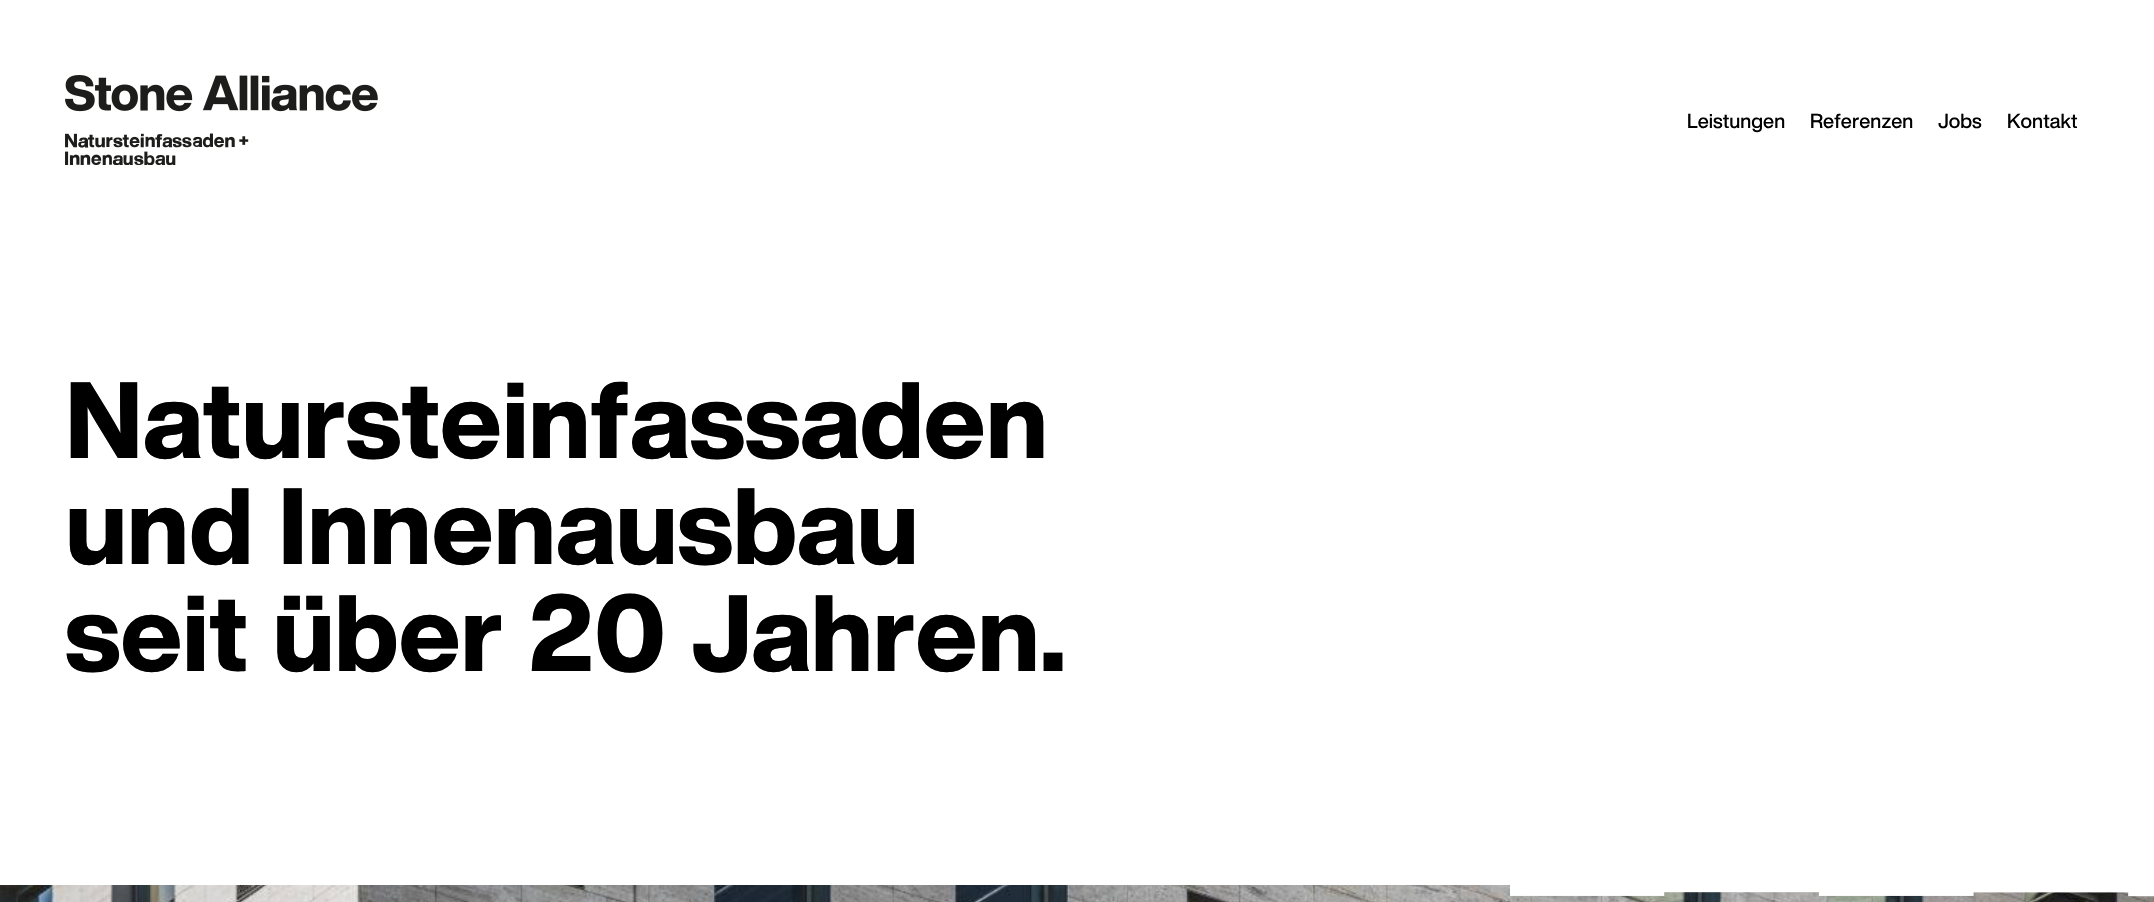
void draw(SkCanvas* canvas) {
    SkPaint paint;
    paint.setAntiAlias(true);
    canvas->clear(0xFFFFFFFF);
    canvas->drawImageRect(SkImages::DeferredFromEncodedData(SkData::MakeFromFileName("img1.png")), SkRect::MakeXYWH(65, 75, 313, 90), SkSamplingOptions());
    SkFont font1(fontMgr->matchFamilyStyle("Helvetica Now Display", SkFontStyle(500, SkFontStyle::kNormal_Width, SkFontStyle::kUpright_Slant)), 20);
    font1.setSubpixel(true);
    paint.setColor(0xFF000000);
    canvas->drawString("Leistungen", 1687, 128, font1, paint);
    canvas->drawString("Referenzen", 1810, 128, font1, paint);
    canvas->drawString("Jobs", 1938, 128, font1, paint);
    canvas->drawString("Kontakt", 2007, 128, font1, paint);
    SkFont font2(fontMgr->matchFamilyStyle("Helvetica Now Display", SkFontStyle(800, SkFontStyle::kNormal_Width, SkFontStyle::kUpright_Slant)), 106.5f);
    font2.setSubpixel(true);
    canvas->drawString("Natursteinfassaden", 65, 458, font2, paint);
    canvas->drawString("und Innenausbau", 65, 564, font2, paint);
    canvas->drawString("seit über 20 Jahren.", 65, 671, font2, paint);
    canvas->drawImageRect(SkImages::DeferredFromEncodedData(SkData::MakeFromFileName("img2.png")), SkRect::MakeXYWH(0, 885, 2154, 17), SkSamplingOptions());
    canvas->drawImageRect(SkImages::DeferredFromEncodedData(SkData::MakeFromFileName("img3.png")), SkRect::MakeXYWH(1510, 885, 644, 12), SkSamplingOptions());
}
